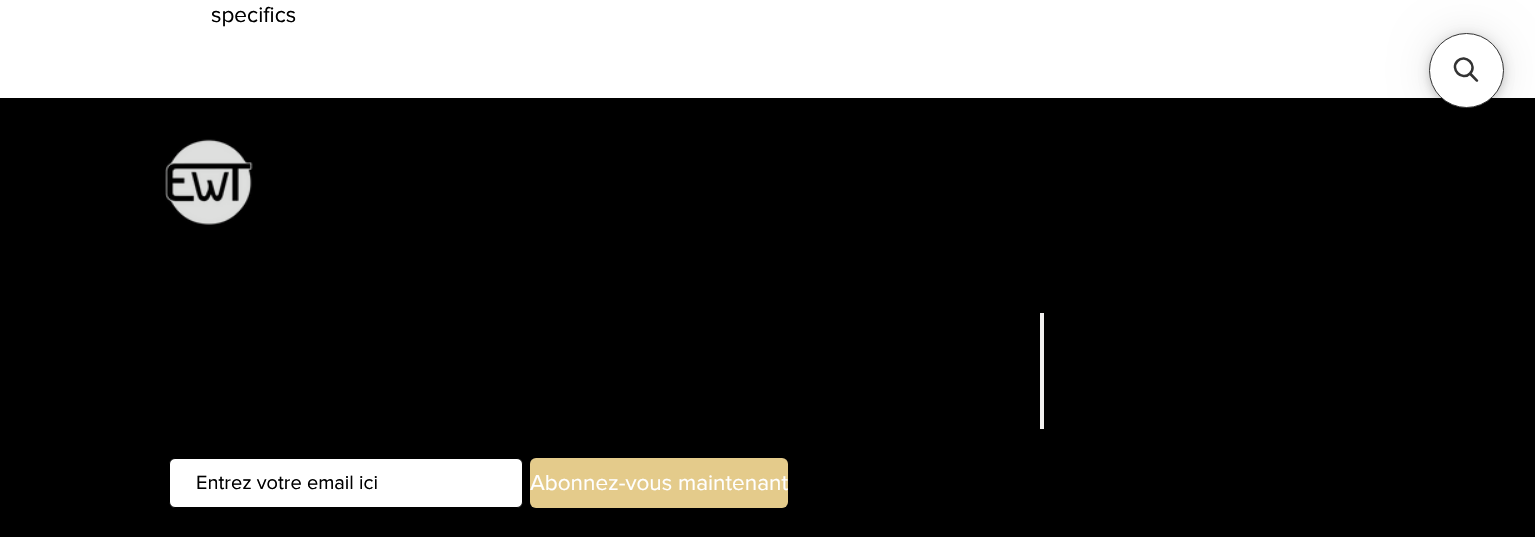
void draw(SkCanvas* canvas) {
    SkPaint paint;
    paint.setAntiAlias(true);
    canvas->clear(0xFFFFFFFF);
    SkFont font1(fontMgr->matchFamilyStyle("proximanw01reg", SkFontStyle::Normal()), 22.5f);
    font1.setSubpixel(true);
    paint.setColor(0xFF000000);
    canvas->drawString("specifics", 211, 22, font1, paint);
    canvas->drawRect(SkRect::MakeXYWH(0, 98, 1535, 439), paint);
    canvas->drawImageRect(SkImages::DeferredFromEncodedData(SkData::MakeFromFileName("img1.png")), SkRect::MakeXYWH(165, 139, 88, 86), SkSamplingOptions());
    paint.setColor(0xFFF2F1F0);
    canvas->drawRect(SkRect::MakeXYWH(1040, 313, 4, 116), paint);
    paint.setColor(0xFFFFFFFF);
    canvas->drawRoundRect(SkRect::MakeXYWH(169.5f, 458.5f, 353, 49), 5.5f, 5.5f, paint);
    paint.setStyle(SkPaint::kStroke_Style);
    paint.setStrokeWidth(1);
    paint.setColor(0xFF000000);
    canvas->drawRoundRect(SkRect::MakeXYWH(169.5f, 458.5f, 353, 49), 5.5f, 5.5f, paint);
    SkFont font2(fontMgr->matchFamilyStyle("proximanw01reg", SkFontStyle::Normal()), 20);
    font2.setSubpixel(true);
    paint.setStyle(SkPaint::kFill_Style);
    canvas->drawString("Entrez votre email ici", 196, 489, font2, paint);
    paint.setColor(0xFFE4CB8B);
    canvas->drawRoundRect(SkRect::MakeXYWH(530, 458, 258, 50), 6, 6, paint);
    paint.setColor(0xFFFFFFFF);
    canvas->drawString("Abonnez-vous maintenant", 530, 490, font1, paint);
    paint.setColor(0x0D000000);
    paint.setMaskFilter(SkMaskFilter::MakeBlur(kNormal_SkBlurStyle, 5));
    canvas->drawRoundRect(SkRect::MakeXYWH(1429, 38, 75, 75), 37.5f, 37.5f, paint);
    paint.setMaskFilter(nullptr);
    paint.setColor(0x26000000);
    paint.setMaskFilter(SkMaskFilter::MakeBlur(kNormal_SkBlurStyle, 5));
    canvas->drawRoundRect(SkRect::MakeXYWH(1429, 35, 75, 75), 37.5f, 37.5f, paint);
    paint.setMaskFilter(nullptr);
    paint.setColor(0x1A000000);
    paint.setMaskFilter(SkMaskFilter::MakeBlur(kNormal_SkBlurStyle, 19));
    canvas->drawRoundRect(SkRect::MakeXYWH(1429, 33, 75, 75), 37.5f, 37.5f, paint);
    paint.setMaskFilter(nullptr);
    paint.setColor(0xFFFFFFFF);
    canvas->drawCircle(1466.5f, 70.5f, 37, paint);
    paint.setStyle(SkPaint::kStroke_Style);
    paint.setColor(0xFF333333);
    canvas->drawCircle(1466.5f, 70.5f, 37, paint);
    paint.setStrokeWidth(2.5f);
    canvas->drawPath(SkPathBuilder().moveTo(1457.5f, 61).cubicTo(1465.5f, 53, 1478, 65.5f, 1470, 73.5f).cubicTo(1462, 81.5f, 1449.5f, 69, 1457.5f, 61).close().detach(), paint);
    paint.setStyle(SkPaint::kFill_Style);
    canvas->drawPath(SkPathBuilder().moveTo(1469, 74.5f).lineTo(1471, 72.5f).lineTo(1478, 80).cubicTo(1479, 81, 1477, 82.5f, 1476, 81.5f).close().detach(), paint);
}
